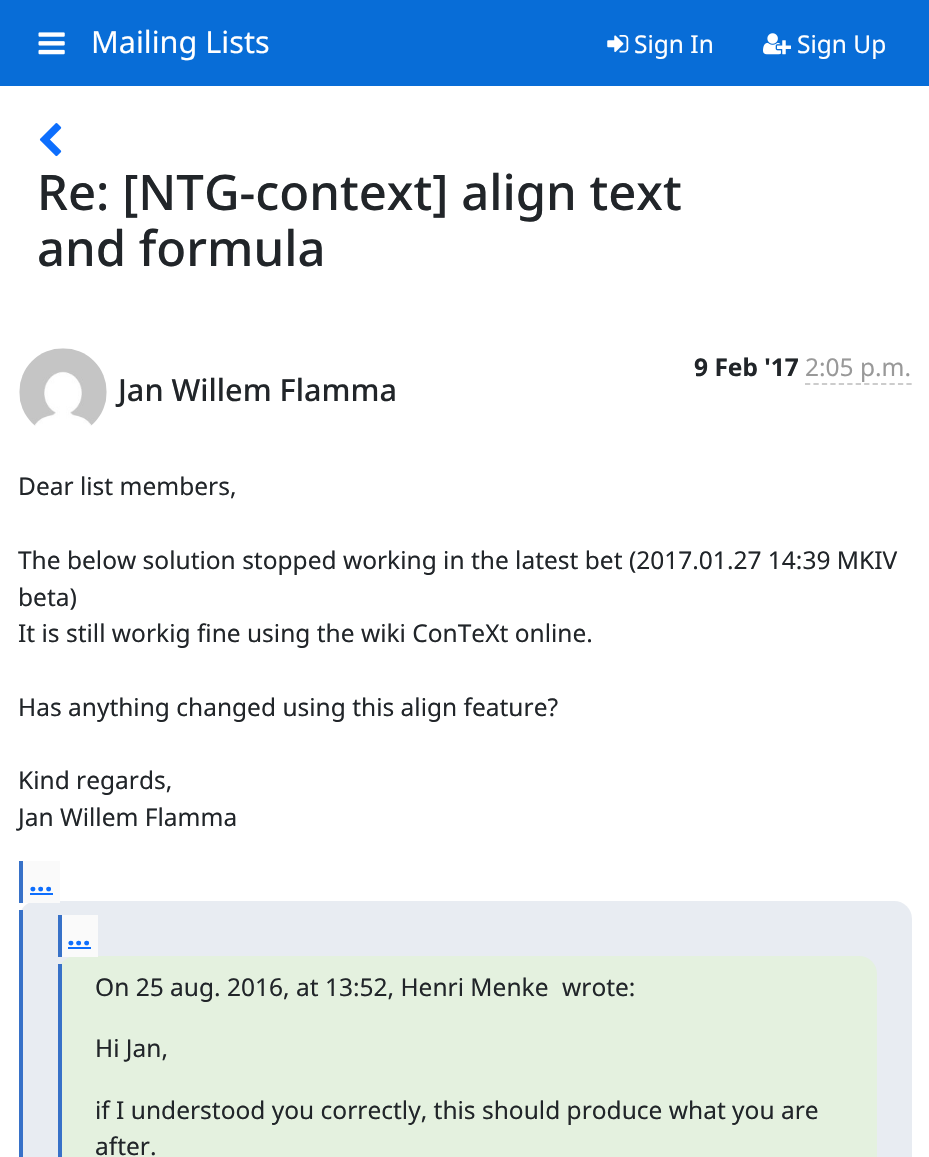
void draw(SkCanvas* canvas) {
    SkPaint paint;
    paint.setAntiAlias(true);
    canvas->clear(0xFFFFFFFF);
    paint.setColor(0xFF086DD7);
    canvas->drawRect(SkRect::MakeXYWH(0, 0, 929, 86), paint);
    canvas->drawImageRect(SkImages::DeferredFromEncodedData(SkData::MakeFromFileName("img1.png")), SkRect::MakeXYWH(38, 32, 27, 23), SkSamplingOptions());
    SkFont font1(fontMgr->matchFamilyStyle("Noto Sans", SkFontStyle::Normal()), 30.6f);
    font1.setSubpixel(true);
    paint.setColor(0xFFFFFFFF);
    canvas->drawString("Mailing Lists", 91, 53, font1, paint);
    canvas->drawImageRect(SkImages::DeferredFromEncodedData(SkData::MakeFromFileName("img2.png")), SkRect::MakeXYWH(607, 35, 22, 18), SkSamplingOptions());
    SkFont font2(fontMgr->matchFamilyStyle("Noto Sans", SkFontStyle::Normal()), 24.5f);
    font2.setSubpixel(true);
    canvas->drawString("Sign In", 634, 53, font2, paint);
    canvas->drawImageRect(SkImages::DeferredFromEncodedData(SkData::MakeFromFileName("img3.png")), SkRect::MakeXYWH(763, 33, 28, 22), SkSamplingOptions());
    canvas->drawString("Sign Up", 797, 53, font2, paint);
    canvas->drawImageRect(SkImages::DeferredFromEncodedData(SkData::MakeFromFileName("img4.png")), SkRect::MakeXYWH(39, 123, 23, 34), SkSamplingOptions());
    SkFont font3(fontMgr->matchFamilyStyle("Noto Sans", SkFontStyle(500, SkFontStyle::kNormal_Width, SkFontStyle::kUpright_Slant)), 49);
    font3.setSubpixel(true);
    paint.setColor(0xFF212529);
    canvas->drawString("Re: [NTG-context] align text", 37, 210, font3, paint);
    canvas->drawString("and formula", 37, 266, font3, paint);
    SkFont font4(fontMgr->matchFamilyStyle("Noto Sans", SkFontStyle::Bold()), 24.5f);
    font4.setSubpixel(true);
    canvas->drawString("9 Feb '17", 694, 376, font4, paint);
    paint.setColor(0xFF999999);
    canvas->drawString("2:05 p.m.", 805, 376, font2, paint);
    paint.setStyle(SkPaint::kStroke_Style);
    paint.setStrokeWidth(1.8f);
    paint.setColor(0xFFCCCCCC);
    paint.setPathEffect(SkDashPathEffect::Make({{5.25f, 3.2f}}, 0));
    canvas->drawPath(SkPathBuilder().moveTo(805, 384).lineTo(912, 384).detach(), paint);
    paint.setPathEffect(nullptr);
    canvas->drawImageRect(SkImages::DeferredFromEncodedData(SkData::MakeFromFileName("img5.png")), SkRect::MakeXYWH(19, 348, 88, 78), SkSamplingOptions());
    SkFont font5(fontMgr->matchFamilyStyle("Noto Sans", SkFontStyle(500, SkFontStyle::kNormal_Width, SkFontStyle::kUpright_Slant)), 30.6f);
    font5.setSubpixel(true);
    paint.setStyle(SkPaint::kFill_Style);
    paint.setColor(0xFF212529);
    canvas->drawString("Jan Willem Flamma", 118, 401, font5, paint);
    canvas->drawString("Dear list members,", 18, 495, font2, paint);
    canvas->drawString("The below solution stopped working in the latest bet (2017.01.27 14:39 MKIV", 18, 569, font2, paint);
    canvas->drawString("beta)", 18, 606, font2, paint);
    canvas->drawString("It is still workig fine using the wiki ConTeXt online.", 18, 642, font2, paint);
    canvas->drawString("Has anything changed using this align feature?", 18, 716, font2, paint);
    canvas->drawString("Kind regards,", 18, 789, font2, paint);
    canvas->drawString("Jan Willem Flamma", 18, 826, font2, paint);
    paint.setColor(0xFFE8ECF2);
    canvas->drawRoundRect(SkRect::MakeXYWH(19, 901, 893, 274), 18, 18, paint);
    paint.setColor(0xFFFAFAFA);
    canvas->drawRect(SkRect::MakeXYWH(23, 861, 37, 42), paint);
    SkFont font6(fontMgr->matchFamilyStyle("Noto Sans", SkFontStyle::Bold()), 28);
    font6.setSubpixel(true);
    paint.setColor(0xFF0D6EFD);
    canvas->drawString("...", 29, 891, font6, paint);
    paint.setColor(0xFF3771C8);
    canvas->drawRect(SkRect::MakeXYWH(19, 861, 4, 42), paint);
    paint.setColor(0xFF0D6EFD);
    canvas->drawRect(SkRect::MakeXYWH(30, 893, 23, 2), paint);
    paint.setColor(0xFF3771C8);
    canvas->drawRect(SkRect::MakeXYWH(19, 910, 4, 247), paint);
    paint.setColor(0xFFE4F1DF);
    canvas->drawRoundRect(SkRect::MakeXYWH(58, 956, 819, 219), 18, 18, paint);
    paint.setColor(0xFFFAFAFA);
    canvas->drawRect(SkRect::MakeXYWH(62, 915, 36, 42), paint);
    paint.setColor(0xFF0D6EFD);
    canvas->drawString("...", 67, 945, font6, paint);
    paint.setColor(0xFF3771C8);
    canvas->drawRect(SkRect::MakeXYWH(58, 915, 4, 42), paint);
    paint.setColor(0xFF0D6EFD);
    canvas->drawRect(SkRect::MakeXYWH(68, 947, 23, 2), paint);
    paint.setColor(0xFF3771C8);
    canvas->drawRect(SkRect::MakeXYWH(58, 964, 4, 193), paint);
    paint.setColor(0xFF212529);
    canvas->drawString("On 25 aug. 2016, at 13:52, Henri Menke", 95, 996, font2, paint);
    canvas->drawString("wrote:", 562, 996, font2, paint);
    canvas->drawString("Hi Jan,", 95, 1057, font2, paint);
    canvas->drawString("if I understood you correctly, this should produce what you are", 95, 1119, font2, paint);
    canvas->drawString("after.", 95, 1155, font2, paint);
}
